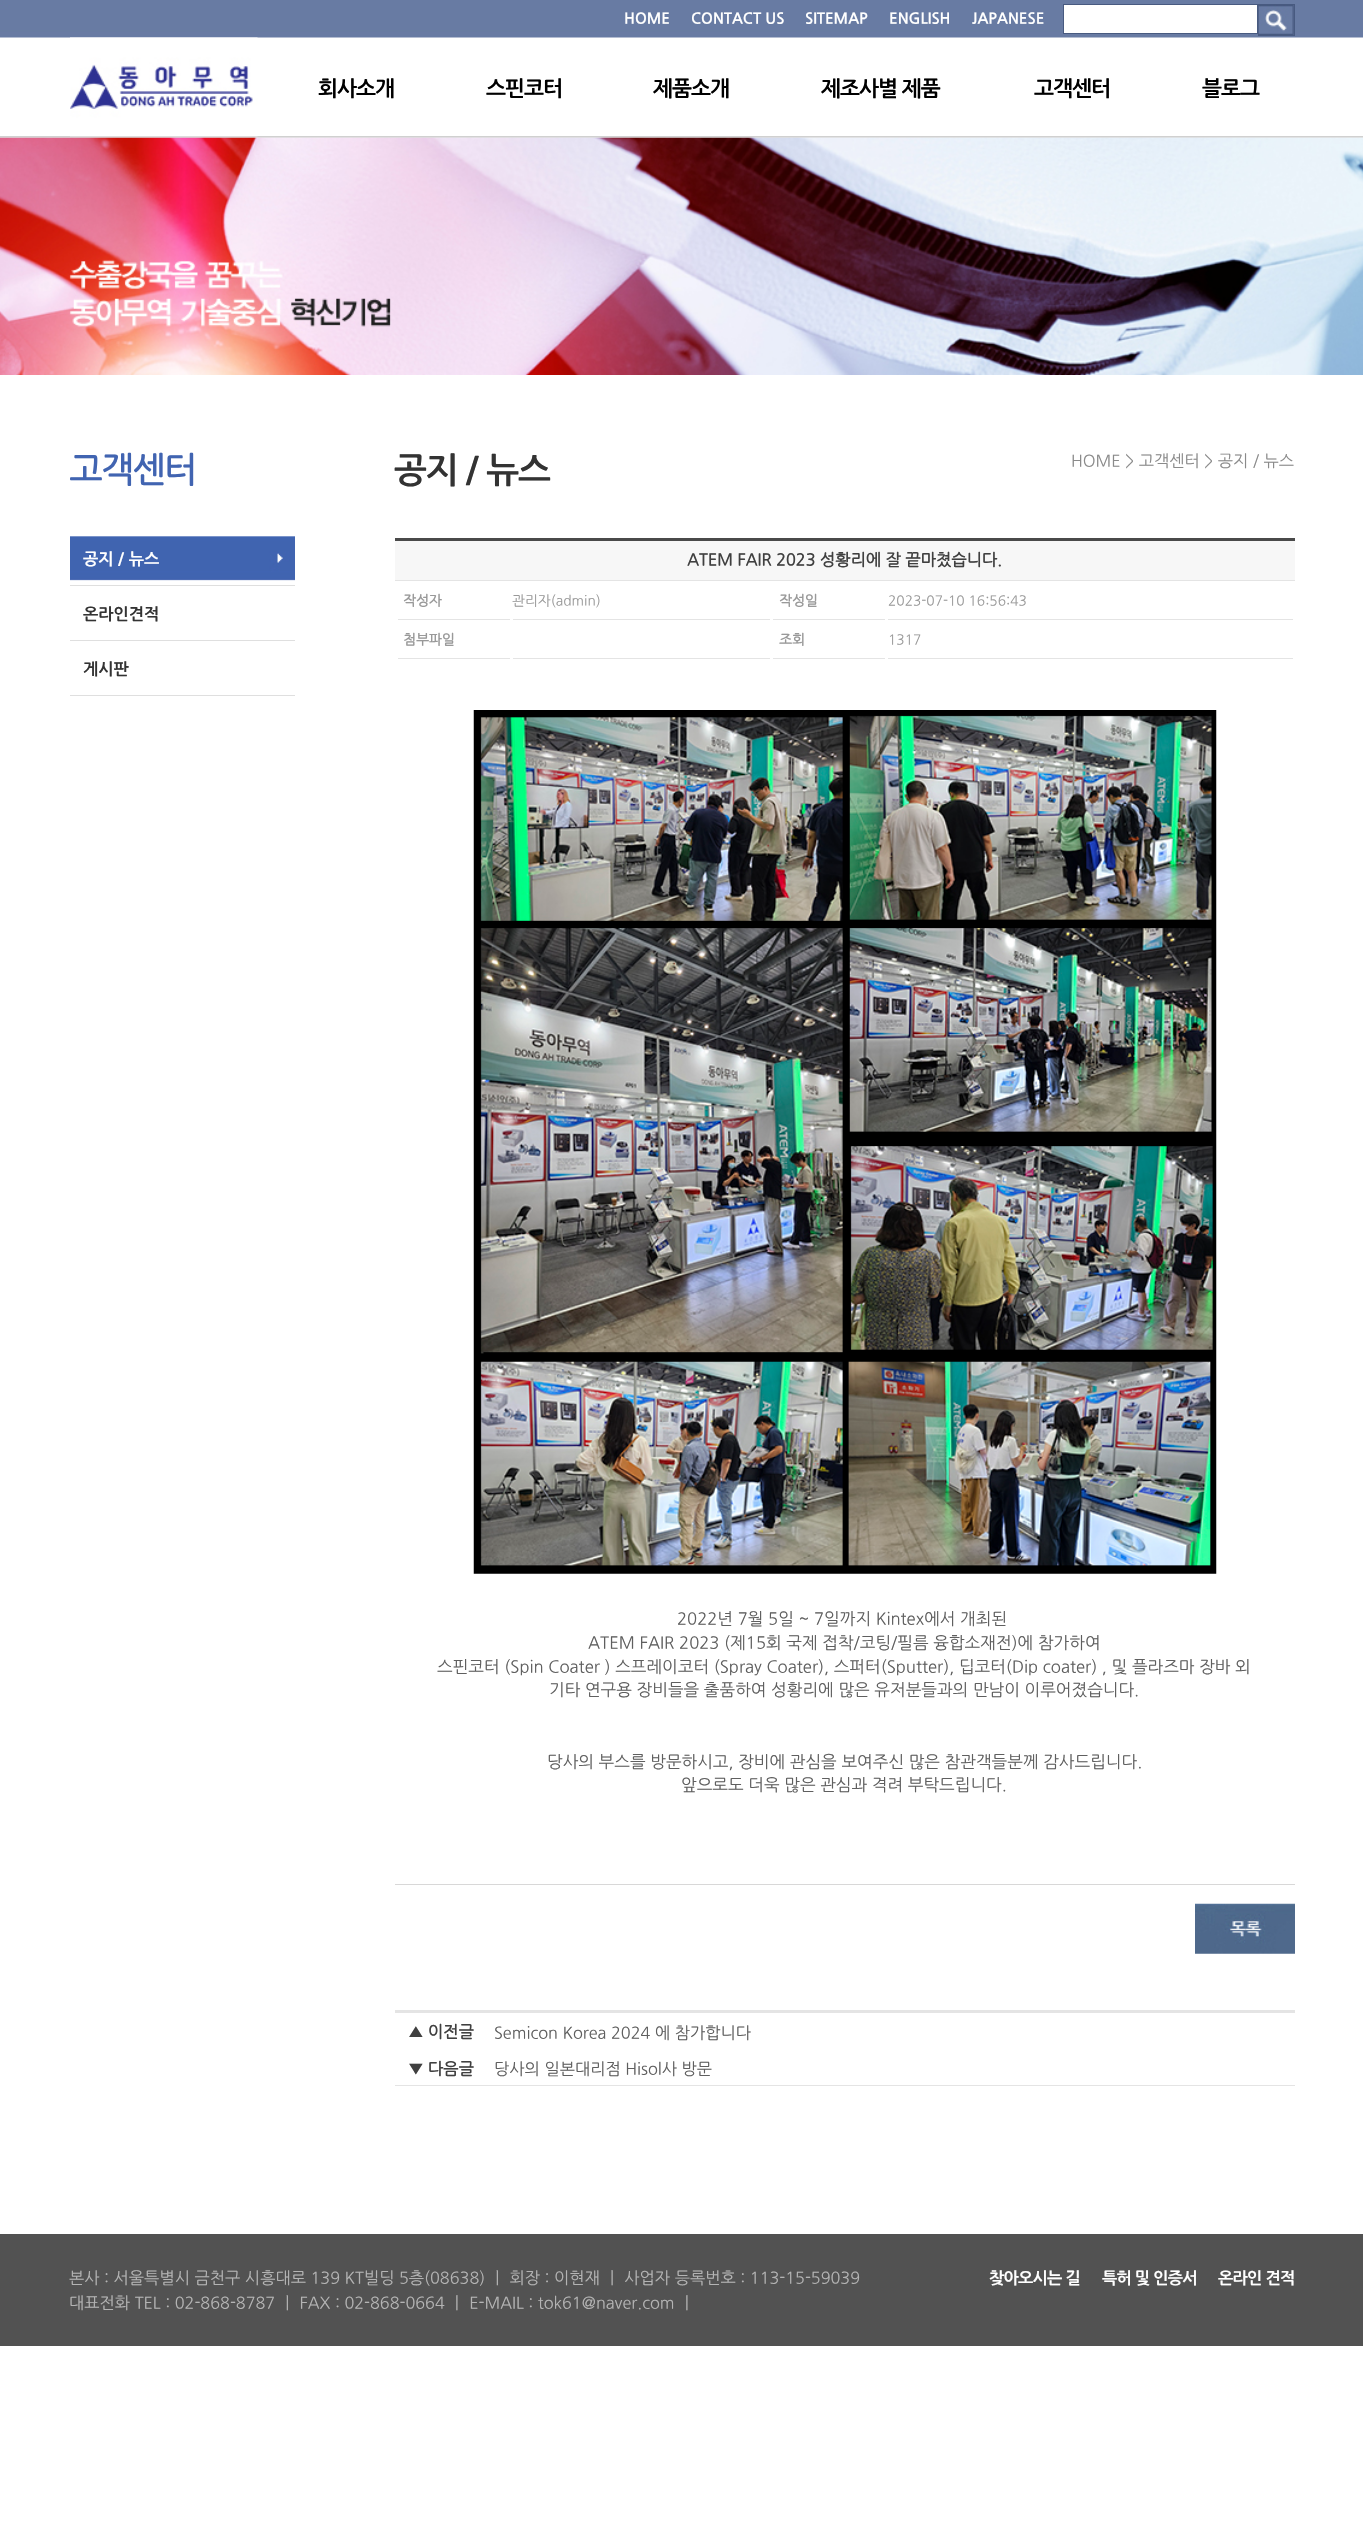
void draw(SkCanvas* canvas) {
    SkPaint paint;
    paint.setAntiAlias(true);
    auto spacedText = [&](const char* s, float x, float y, const SkFont& font, const SkPaint& ink, float letter, float word) {
        std::vector<SkGlyphID> glyphs(font.countText(s, strlen(s), SkTextEncoding::kUTF8));
        std::vector<float> xs(glyphs.size());
        font.textToGlyphs(s, strlen(s), SkTextEncoding::kUTF8, glyphs);
        font.getXPos(glyphs, xs, x);
        float extra = 0;
        for (size_t i = 0; i < glyphs.size(); i++) {
            xs[i] += extra;
            extra += letter + word * (glyphs[i] == font.unicharToGlyph(' '));
        }
        canvas->drawTextBlob(SkTextBlob::MakeFromPosHGlyphs(glyphs, xs, y, font), 0, 0, ink);
    };
    canvas->clear(0xFFFFFFFF);
    canvas->drawImageRect(SkImages::DeferredFromEncodedData(SkData::MakeFromFileName("img1.png")), SkRect::MakeXYWH(0, 0, 1363, 138), SkSamplingOptions());
    SkFont font1(fontMgr->matchFamilyStyle("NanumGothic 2", SkFontStyle::Bold()), 15);
    font1.setSubpixel(true);
    paint.setColor(0xFFFFFFFF);
    canvas->drawString("HOME", 624, 23, font1, paint);
    canvas->drawString("CONTACT US", 691, 23, font1, paint);
    canvas->drawString("SITEMAP", 805, 23, font1, paint);
    canvas->drawString("ENGLISH", 889, 23, font1, paint);
    canvas->drawString("JAPANESE", 972, 23, font1, paint);
    canvas->drawRect(SkRect::MakeXYWH(1063.5f, 4.5f, 194, 29), paint);
    paint.setStyle(SkPaint::kStroke_Style);
    paint.setStrokeWidth(1);
    paint.setColor(0xFF485A80);
    canvas->drawRect(SkRect::MakeXYWH(1063.5f, 4.5f, 194, 29), paint);
    canvas->drawRect(SkRect::MakeXYWH(1258.5f, 4.5f, 36, 31), paint);
    canvas->drawImageRect(SkImages::DeferredFromEncodedData(SkData::MakeFromFileName("img2.png")), SkRect::MakeXYWH(1258, 5, 36, 30), SkSamplingOptions());
    canvas->drawImageRect(SkImages::DeferredFromEncodedData(SkData::MakeFromFileName("img3.png")), SkRect::MakeXYWH(70, 37, 188, 100), SkSamplingOptions());
    SkFont font2(fontMgr->matchFamilyStyle("NanumGothic 2", SkFontStyle::Bold()), 21.25f);
    font2.setSubpixel(true);
    paint.setStyle(SkPaint::kFill_Style);
    paint.setColor(0xFF000000);
    spacedText("회사소개", 318, 95, font2, paint, -1, 0);
    spacedText("스핀코터", 486, 95, font2, paint, -1, 0);
    spacedText("제품소개", 653, 95, font2, paint, -1, 0);
    spacedText("제조사별 제품", 821, 95, font2, paint, -1, 0);
    spacedText("고객센터", 1034, 95, font2, paint, -1, 0);
    spacedText("블로그", 1202, 95, font2, paint, -1, 0);
    canvas->drawImageRect(SkImages::DeferredFromEncodedData(SkData::MakeFromFileName("img4.png")), SkRect::MakeXYWH(0, 137, 1363, 238), SkSamplingOptions());
    SkFont font3(fontMgr->matchFamilyStyle("NanumGothic", SkFontStyle::Bold()), 35);
    font3.setSubpixel(true);
    paint.setColor(0xFF4164B1);
    spacedText("고객센터", 69, 481, font3, paint, -1.25f, 0);
    paint.setColor(0xFFDFDFDF);
    canvas->drawRect(SkRect::MakeXYWH(70, 585, 225, 1), paint);
    canvas->drawImageRect(SkImages::DeferredFromEncodedData(SkData::MakeFromFileName("img5.png")), SkRect::MakeXYWH(70, 536, 225, 45), SkSamplingOptions());
    SkFont font4(fontMgr->matchFamilyStyle("NanumGothic 2", SkFontStyle::Bold()), 16.25f);
    font4.setSubpixel(true);
    paint.setColor(0xFFFFFFFF);
    canvas->drawString("공지 / 뉴스", 83, 564, font4, paint);
    paint.setColor(0xFFDFDFDF);
    canvas->drawRect(SkRect::MakeXYWH(70, 640, 225, 1), paint);
    paint.setColor(0xFF333333);
    canvas->drawString("온라인견적", 83, 619, font4, paint);
    paint.setColor(0xFFDFDFDF);
    canvas->drawRect(SkRect::MakeXYWH(70, 695, 225, 1), paint);
    paint.setColor(0xFF333333);
    canvas->drawString("게시판", 83, 674, font4, paint);
    SkFont font5(fontMgr->matchFamilyStyle("NanumGothic 2", SkFontStyle::Bold()), 35);
    font5.setSubpixel(true);
    spacedText("공지 / 뉴스", 394, 481, font5, paint, -1.25f, 0);
    SkFont font6(fontMgr->matchFamilyStyle("NanumGothic", SkFontStyle::Normal()), 16.25f);
    font6.setSubpixel(true);
    paint.setColor(0xFF8A8A8A);
    canvas->drawString("HOME > 고객센터 > 공지 / 뉴스", 1071, 466, font6, paint);
    paint.setColor(0xFFF7F7F7);
    canvas->drawRect(SkRect::MakeXYWH(395, 541, 900, 39), paint);
    paint.setColor(0xFF4A4A4A);
    canvas->drawRect(SkRect::MakeXYWH(395, 538, 900, 3), paint);
    paint.setColor(0xFFE4E4E4);
    canvas->drawRect(SkRect::MakeXYWH(395, 580, 900, 1), paint);
    SkFont font7(fontMgr->matchFamilyStyle("NanumGothic", SkFontStyle::Bold()), 16.25f);
    font7.setSubpixel(true);
    paint.setColor(0xFF404040);
    canvas->drawString("ATEM FAIR 2023 성황리에 잘 끝마쳤습니다.", 687, 565, font7, paint);
    paint.setColor(0xFFE4E4E4);
    canvas->drawRect(SkRect::MakeXYWH(398, 619, 112, 1), paint);
    SkFont font8(fontMgr->matchFamilyStyle("NanumGothic", SkFontStyle::Bold()), 13.75f);
    font8.setSubpixel(true);
    paint.setColor(0xFF999999);
    canvas->drawString("작성자", 403, 605, font8, paint);
    paint.setColor(0xFFE4E4E4);
    canvas->drawRect(SkRect::MakeXYWH(513, 619, 257, 1), paint);
    SkFont font9(fontMgr->matchFamilyStyle("NanumGothic", SkFontStyle::Normal()), 13.75f);
    font9.setSubpixel(true);
    paint.setColor(0xFF999999);
    canvas->drawString("관리자(admin)", 512, 605, font9, paint);
    paint.setColor(0xFFE4E4E4);
    canvas->drawRect(SkRect::MakeXYWH(773, 619, 112, 1), paint);
    paint.setColor(0xFF999999);
    canvas->drawString("작성일", 779, 605, font8, paint);
    paint.setColor(0xFFE4E4E4);
    canvas->drawRect(SkRect::MakeXYWH(888, 619, 405, 1), paint);
    paint.setColor(0xFF999999);
    canvas->drawString("2023-07-10 16:56:43", 888, 605, font9, paint);
    paint.setColor(0xFFE4E4E4);
    canvas->drawRect(SkRect::MakeXYWH(398, 658, 112, 1), paint);
    paint.setColor(0xFF999999);
    canvas->drawString("첨부파일", 403, 644, font8, paint);
    paint.setColor(0xFFE4E4E4);
    canvas->drawRect(SkRect::MakeXYWH(773, 658, 112, 1), paint);
    paint.setColor(0xFF999999);
    canvas->drawString("조회", 779, 644, font8, paint);
    paint.setColor(0xFFE4E4E4);
    canvas->drawRect(SkRect::MakeXYWH(888, 658, 405, 1), paint);
    paint.setColor(0xFF999999);
    canvas->drawString("1317", 888, 644, font9, paint);
    paint.setColor(0xFFE4E4E4);
    canvas->drawRect(SkRect::MakeXYWH(513, 658, 257, 1), paint);
    paint.setColor(0xFFD8D8D8);
    canvas->drawRect(SkRect::MakeXYWH(395, 1884, 900, 1), paint);
    canvas->drawImageRect(SkImages::DeferredFromEncodedData(SkData::MakeFromFileName("img6.png")), SkRect::MakeXYWH(473, 710, 744, 864), SkSamplingOptions());
    SkFont font10(fontMgr->matchFamilyStyle("NanumGothic", SkFontStyle::Normal()), 16.65f);
    font10.setSubpixel(true);
    paint.setColor(0xFF5F5F5F);
    canvas->drawString("2022년 7월 5일 ~ 7일까지 Kintex에서 개최된", 677, 1624, font10, paint);
    canvas->drawString("ATEM FAIR 2023 (제15회 국제 접착/코팅/필름 융합소재전)에 참가하여", 588, 1648, font10, paint);
    canvas->drawString("스핀코터 (Spin Coater ) 스프레이코터 (Spray Coater), 스퍼터(Sputter), 딥코터(Dip coater) , 및 플라즈마 장바 외", 437, 1672, font10, paint);
    canvas->drawString("기타 연구용 장비들을 출품하여 성황리에 많은 유저분들과의 만남이 이루어졌습니다.", 549, 1695, font10, paint);
    canvas->drawString("당사의 부스를 방문하시고, 장비에 관심을 보여주신 많은 참관객들분께 감사드립니다.", 547, 1767, font10, paint);
    canvas->drawString("앞으로도 더욱 많은 관심과 격려 부탁드립니다.", 681, 1790, font10, paint);
    canvas->drawImageRect(SkImages::DeferredFromEncodedData(SkData::MakeFromFileName("img7.png")), SkRect::MakeXYWH(1195, 1903, 100, 51), SkSamplingOptions());
    paint.setColor(0xFFE4E4E4);
    canvas->drawRect(SkRect::MakeXYWH(395, 2010, 900, 3), paint);
    canvas->drawRect(SkRect::MakeXYWH(395, 2085, 900, 1), paint);
    paint.setColor(0xFF404040);
    canvas->drawString("▲ 이전글", 408, 2037, font7, paint);
    paint.setColor(0xFF5F5F5F);
    canvas->drawString("Semicon Korea 2024 에 참가합니다", 494, 2038, font6, paint);
    paint.setColor(0xFF404040);
    canvas->drawString("▼ 다음글", 408, 2074, font7, paint);
    paint.setColor(0xFF5F5F5F);
    canvas->drawString("당사의 일본대리점 Hisol사 방문", 494, 2074, font6, paint);
    paint.setColor(0xFF525252);
    canvas->drawRect(SkRect::MakeXYWH(0, 2234, 1363, 112), paint);
    paint.setColor(0xFFB4B4B4);
    canvas->drawString("본사 : 서울특별시 금천구 시흥대로 139 KT빌딩 5층(08638) ㅣ 회장 : 이현재 ㅣ 사업자 등록번호 : 113-15-59039", 69, 2283, font6, paint);
    paint.setColor(0xFFFFFFFF);
    spacedText("찾아오시는 길", 989, 2283, font4, paint, -0.75f, 0);
    spacedText("특허 및 인증서", 1102, 2283, font4, paint, -0.75f, 0);
    spacedText("온라인 견적", 1218, 2283, font4, paint, -0.75f, 0);
    paint.setColor(0xFFB4B4B4);
    canvas->drawString("대표전화 TEL : 02-868-8787 ㅣ FAX : 02-868-0664 ㅣ E-MAIL : tok61@naver.com ㅣ", 69, 2308, font6, paint);
}
